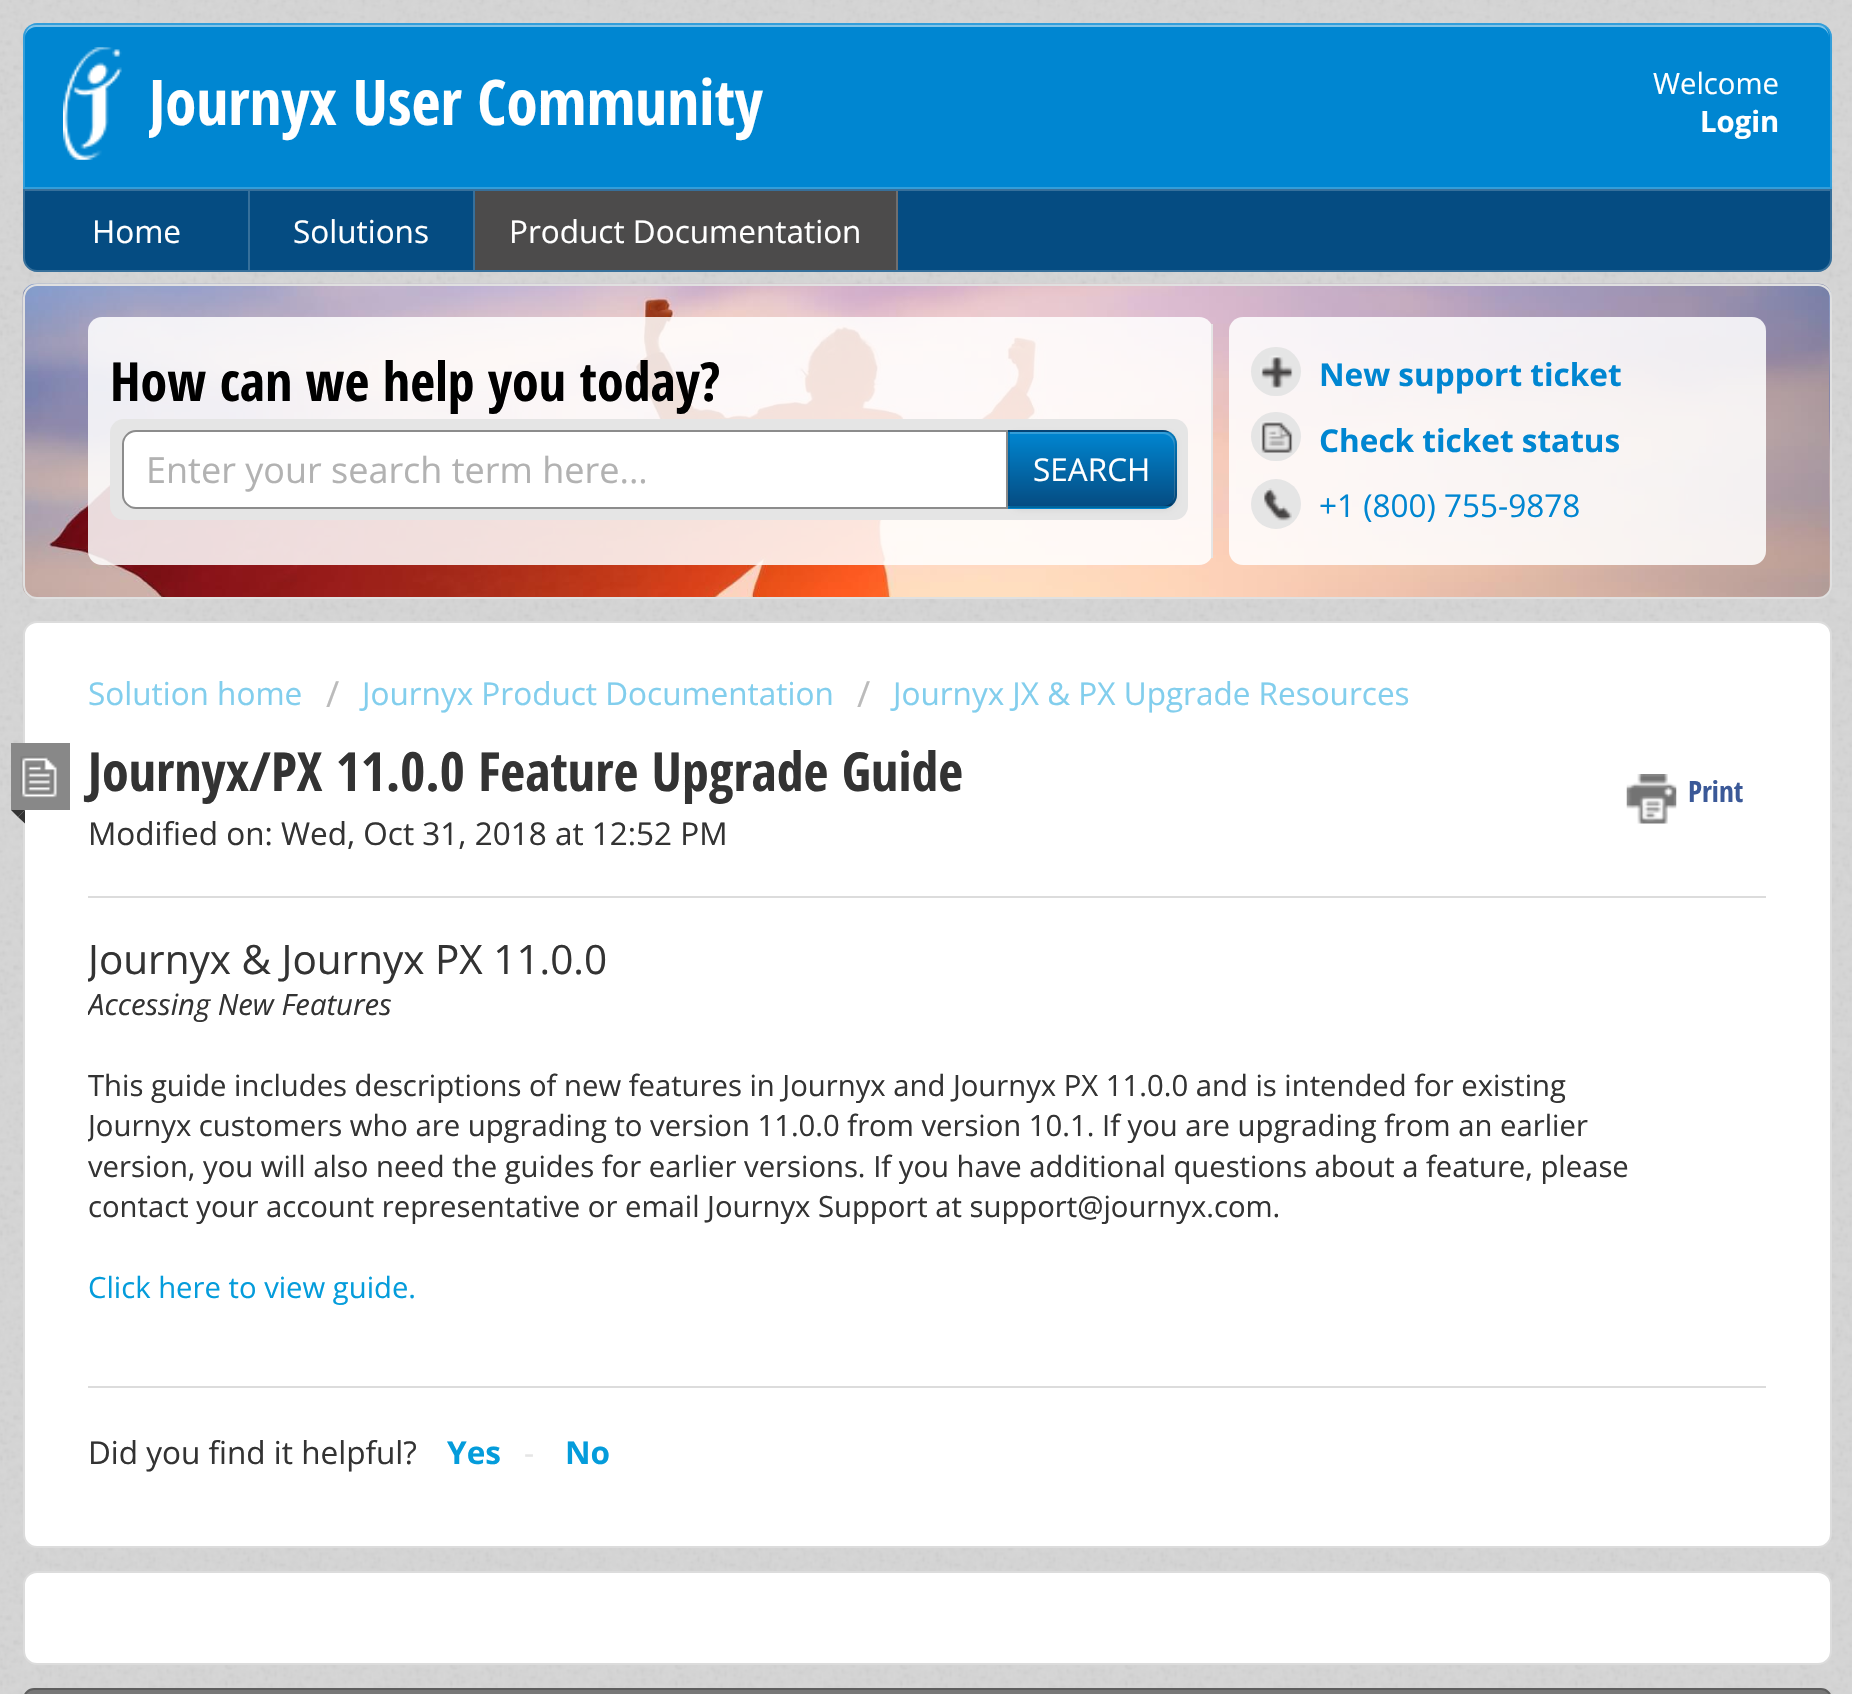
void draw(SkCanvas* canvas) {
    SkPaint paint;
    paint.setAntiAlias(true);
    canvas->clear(0xFFD4D4D4);
    canvas->drawImageRect(SkImages::DeferredFromEncodedData(SkData::MakeFromFileName("img1.png")), SkRect::MakeXYWH(0, 0, 1852, 1694), SkSamplingOptions());
    paint.setColor(0xFF0086D1);
    canvas->drawPath(SkPathBuilder().moveTo(37, 23).lineTo(1818, 23).cubicTo(1825.5f, 23, 1832, 29.5f, 1832, 37).lineTo(1832, 189).lineTo(23, 189).lineTo(23, 37).cubicTo(23, 29.5f, 29.5f, 23, 37, 23).close().detach(), paint);
    paint.setColor(0xFF80C3E8);
    canvas->drawPath(SkPathBuilder().moveTo(36, 27).lineTo(1818, 27).cubicTo(1824, 27, 1829, 32, 1829, 38).cubicTo(1829, 31, 1825, 25, 1818, 25).lineTo(36, 25).cubicTo(29, 25, 25, 31, 25, 38).cubicTo(25, 32, 30, 27, 36, 27).close().detach(), paint);
    paint.setStyle(SkPaint::kStroke_Style);
    paint.setStrokeWidth(2);
    paint.setColor(0x33FFFFFF);
    canvas->drawPath(SkPathBuilder().moveTo(37, 24).lineTo(1818, 24).cubicTo(1825, 24, 1831, 30, 1831, 37).lineTo(1831, 188).lineTo(24, 188).lineTo(24, 37).cubicTo(24, 30, 30, 24, 37, 24).close().detach(), paint);
    canvas->drawImageRect(SkImages::DeferredFromEncodedData(SkData::MakeFromFileName("img2.png")), SkRect::MakeXYWH(63, 47, 59, 113), SkSamplingOptions());
    canvas->save();
    canvas->clipRect(SkRect::MakeXYWH(149, 54, 1199, 97));
    SkFont font1(fontMgr->matchFamilyStyle("Open Sans Condensed", SkFontStyle::Bold()), 63);
    font1.setSubpixel(true);
    paint.setStyle(SkPaint::kFill_Style);
    paint.setColor(0xFFFFFFFF);
    canvas->drawString("Journyx User Community", 149, 125, font1, paint);
    canvas->restore();
    SkFont font2(fontMgr->matchFamilyStyle("Open Sans", SkFontStyle::Normal()), 29.25f);
    font2.setSubpixel(true);
    canvas->drawString("Welcome", 1653, 94, font2, paint);
    SkFont font3(fontMgr->matchFamilyStyle("Open Sans", SkFontStyle::Bold()), 29.25f);
    font3.setSubpixel(true);
    canvas->drawString("Login", 1700, 132, font3, paint);
    paint.setColor(0xFF054C82);
    canvas->drawPath(SkPathBuilder().moveTo(23, 189).lineTo(1832, 189).lineTo(1832, 258).cubicTo(1832, 265.5f, 1825.5f, 272, 1818, 272).lineTo(37, 272).cubicTo(29.5f, 272, 23, 265.5f, 23, 258).close().detach(), paint);
    paint.setStyle(SkPaint::kStroke_Style);
    paint.setColor(0x33FFFFFF);
    canvas->drawPath(SkPathBuilder().moveTo(24, 190).lineTo(1831, 190).lineTo(1831, 258).cubicTo(1831, 265, 1825, 271, 1818, 271).lineTo(37, 271).cubicTo(30, 271, 24, 265, 24, 258).close().detach(), paint);
    paint.setStyle(SkPaint::kFill_Style);
    paint.setColor(0xFF37709B);
    canvas->drawRect(SkRect::MakeXYWH(248, 191, 2, 79), paint);
    SkFont font4(fontMgr->matchFamilyStyle("Open Sans", SkFontStyle::Normal()), 31.5f);
    font4.setSubpixel(true);
    paint.setColor(0xFFFFFFFF);
    canvas->drawString("Home", 92, 243, font4, paint);
    paint.setColor(0xFF37709B);
    canvas->drawRect(SkRect::MakeXYWH(473, 191, 2, 79), paint);
    paint.setColor(0xFFFFFFFF);
    canvas->drawString("Solutions", 293, 243, font4, paint);
    paint.setColor(0xFF4C4B4B);
    canvas->drawRect(SkRect::MakeXYWH(475, 191, 421, 79), paint);
    paint.setColor(0xFF706F6F);
    canvas->drawRect(SkRect::MakeXYWH(896, 191, 2, 79), paint);
    paint.setColor(0xFFFFFFFF);
    canvas->drawString("Product Documentation", 509, 243, font4, paint);
    canvas->drawImageRect(SkImages::DeferredFromEncodedData(SkData::MakeFromFileName("img3.png")), SkRect::MakeXYWH(22, 283, 1810, 316), SkSamplingOptions());
    paint.setStyle(SkPaint::kStroke_Style);
    paint.setColor(0xFFE0E0E0);
    canvas->drawRoundRect(SkRect::MakeXYWH(24, 285, 1807, 313), 13, 13, paint);
    paint.setStyle(SkPaint::kFill_Style);
    paint.setColor(0xD9FFFFFF);
    canvas->drawRoundRect(SkRect::MakeXYWH(88, 317, 1125, 248), 14, 14, paint);
    paint.setColor(0xFFE5E5E5);
    canvas->drawRect(SkRect::MakeXYWH(1211, 324, 2, 234), paint);
    SkFont font5(fontMgr->matchFamilyStyle("Open Sans Condensed", SkFontStyle::Bold()), 54);
    font5.setSubpixel(true);
    paint.setColor(0xFF000000);
    canvas->drawString("How can we help you today?", 110, 401, font5, paint);
    paint.setColor(0xFFE5E5E5);
    canvas->drawRoundRect(SkRect::MakeXYWH(110, 419, 1078, 101), 14, 14, paint);
    paint.setColor(0xFFFFFFFF);
    canvas->drawPath(SkPathBuilder().moveTo(136, 431).lineTo(1007, 431).lineTo(1007, 508).lineTo(136, 508).cubicTo(129, 508, 123, 502, 123, 495).lineTo(123, 444).cubicTo(123, 437, 129, 431, 136, 431).close().detach(), paint);
    paint.setStyle(SkPaint::kStroke_Style);
    paint.setColor(0xFF8C8C8C);
    canvas->drawPath(SkPathBuilder().moveTo(136, 431).lineTo(1007, 431).lineTo(1007, 508).lineTo(136, 508).cubicTo(129, 508, 123, 502, 123, 495).lineTo(123, 444).cubicTo(123, 437, 129, 431, 136, 431).close().detach(), paint);
    SkFont font6(fontMgr->matchFamilyStyle("Open Sans", SkFontStyle::Normal()), 36);
    font6.setSubpixel(true);
    paint.setStyle(SkPaint::kFill_Style);
    paint.setColor(0xFFB2B2B2);
    canvas->drawString("Enter your search term here...", 146, 483, font6, paint);
    paint.setColor(0x0D000000);
    paint.setMaskFilter(SkMaskFilter::MakeBlur(kNormal_SkBlurStyle, 2));
    canvas->drawRoundRect(SkRect::MakeXYWH(1008, 432, 169, 79), 14, 14, paint);
    paint.setMaskFilter(nullptr);
    canvas->save();
    canvas->clipPath(SkPathBuilder().moveTo(1008, 430).lineTo(1163, 430).cubicTo(1170.5f, 430, 1177, 436.5f, 1177, 444).lineTo(1177, 495).cubicTo(1177, 502.5f, 1170.5f, 509, 1163, 509).lineTo(1008, 509).close().detach(), true);
    {
        const SkColor colors[] = {0xFF0086D1, 0xFF054C82};
        const float stops[] = {0, 1};
        const SkPoint ends[] = {{1092, 358}, {1092, 432}};
        paint.setShader(SkGradientShader::MakeLinear(ends, colors, stops, 2, SkTileMode::kClamp));
        paint.setAlpha(255);
    }
    canvas->drawRect(SkRect::MakeXYWH(1008, 430, 169, 2), paint);
    {
        const SkColor colors[] = {0xFF0086D1, 0xFF054C82};
        const float stops[] = {0, 1};
        const SkPoint ends[] = {{1092, 432}, {1092, 506}};
        paint.setShader(SkGradientShader::MakeLinear(ends, colors, stops, 2, SkTileMode::kClamp));
        paint.setAlpha(255);
    }
    canvas->drawRect(SkRect::MakeXYWH(1008, 432, 169, 74), paint);
    {
        const SkColor colors[] = {0xFF0086D1, 0xFF054C82};
        const float stops[] = {0, 1};
        const SkPoint ends[] = {{1092, 506}, {1092, 581}};
        paint.setShader(SkGradientShader::MakeLinear(ends, colors, stops, 2, SkTileMode::kClamp));
        paint.setAlpha(255);
    }
    canvas->drawRect(SkRect::MakeXYWH(1008, 506, 169, 3), paint);
    canvas->restore();
    paint.setShader(nullptr);
    paint.setColor(0x33FFFFFF);
    canvas->drawPath(SkPathBuilder().moveTo(1010, 434).lineTo(1163, 434).cubicTo(1169, 434, 1174, 439, 1174, 446).lineTo(1174, 497).lineTo(1173, 501).cubicTo(1174, 499, 1175, 497, 1175, 495).lineTo(1175, 443).cubicTo(1175, 437, 1170, 432, 1164, 432).lineTo(1010, 432).close().detach(), paint);
    paint.setColor(0x1A000000);
    canvas->drawPath(SkPathBuilder().moveTo(1173, 434).cubicTo(1170, 431, 1167, 430, 1163, 430).lineTo(1008, 430).lineTo(1010, 432).lineTo(1163, 432).cubicTo(1166, 432, 1169, 433, 1171, 436).close().detach(), paint);
    canvas->drawPath(SkPathBuilder().moveTo(1173, 434).cubicTo(1175, 436, 1176, 438, 1177, 441).lineTo(1177, 497).cubicTo(1176, 500, 1175, 503, 1173, 504).lineTo(1171, 503).cubicTo(1173, 501, 1174, 498, 1174, 495).lineTo(1174, 443).cubicTo(1174, 440, 1173, 437, 1171, 436).close().detach(), paint);
    paint.setColor(0x40000000);
    canvas->drawPath(SkPathBuilder().moveTo(1173, 504).cubicTo(1170, 507, 1167, 508, 1163, 508).lineTo(1008, 508).lineTo(1010, 506).lineTo(1163, 506).cubicTo(1166, 506, 1169, 505, 1171, 503).close().detach(), paint);
    paint.setColor(0x1A000000);
    canvas->drawPath(SkPathBuilder().moveTo(1010, 432).lineTo(1010, 506).lineTo(1008, 508).lineTo(1008, 430).close().detach(), paint);
    paint.setColor(0xFFFFFFFF);
    canvas->drawString("SEARCH", 1033, 481, font4, paint);
    paint.setColor(0xD9FFFFFF);
    canvas->drawRoundRect(SkRect::MakeXYWH(1229, 317, 537, 248), 14, 14, paint);
    paint.setColor(0xFFE5E5E5);
    canvas->drawRoundRect(SkRect::MakeXYWH(1251, 347, 50, 49), 24.5f, 24.5f, paint);
    canvas->drawImageRect(SkImages::DeferredFromEncodedData(SkData::MakeFromFileName("img4.png")), SkRect::MakeXYWH(1260, 355, 33, 33), SkSamplingOptions());
    SkFont font7(fontMgr->matchFamilyStyle("Open Sans", SkFontStyle::Bold()), 31.5f);
    font7.setSubpixel(true);
    paint.setColor(0xFF0086D1);
    canvas->drawString("New support ticket", 1319, 386, font7, paint);
    paint.setColor(0xFFE5E5E5);
    canvas->drawRoundRect(SkRect::MakeXYWH(1251, 412, 50, 49), 24.5f, 24.5f, paint);
    canvas->drawImageRect(SkImages::DeferredFromEncodedData(SkData::MakeFromFileName("img5.png")), SkRect::MakeXYWH(1260, 421, 33, 32), SkSamplingOptions());
    paint.setColor(0xFF0086D1);
    canvas->drawString("Check ticket status", 1319, 452, font7, paint);
    paint.setColor(0xFFE5E5E5);
    canvas->drawCircle(1276, 504, 25, paint);
    canvas->drawImageRect(SkImages::DeferredFromEncodedData(SkData::MakeFromFileName("img6.png")), SkRect::MakeXYWH(1264, 488, 28, 33), SkSamplingOptions());
    paint.setColor(0xFF0086D1);
    canvas->drawString("+1 (800) 755-9878", 1319, 517, font4, paint);
    paint.setColor(0xFFFFFFFF);
    canvas->drawRoundRect(SkRect::MakeXYWH(24, 622, 1807, 925), 13, 13, paint);
    paint.setStyle(SkPaint::kStroke_Style);
    paint.setColor(0xFFDCDCDC);
    canvas->drawRoundRect(SkRect::MakeXYWH(24, 622, 1807, 925), 13, 13, paint);
    paint.setStyle(SkPaint::kFill_Style);
    paint.setColor(0xFF82CEED);
    canvas->drawString("Solution home", 88, 705, font4, paint);
    paint.setColor(0xFFBBBBBB);
    canvas->drawString("/", 326, 707, font6, paint);
    paint.setColor(0xFF82CEED);
    canvas->drawString("Journyx Product Documentation", 362, 705, font4, paint);
    paint.setColor(0xFFBBBBBB);
    canvas->drawString("/", 857, 707, font6, paint);
    paint.setColor(0xFF82CEED);
    canvas->drawString("Journyx JX & PX Upgrade Resources", 893, 705, font4, paint);
    paint.setColor(0xFF888888);
    canvas->drawRect(SkRect::MakeXYWH(11, 743, 59, 67), paint);
    canvas->drawImageRect(SkImages::DeferredFromEncodedData(SkData::MakeFromFileName("img7.png")), SkRect::MakeXYWH(20, 756, 37, 42), SkSamplingOptions());
    paint.setColor(0xFF333333);
    canvas->drawPath(SkPathBuilder().moveTo(11, 810).lineTo(25, 810).lineTo(18, 817).close().detach(), paint);
    canvas->drawPath(SkPathBuilder().moveTo(25, 810).lineTo(25, 823.5f).lineTo(18, 817).close().detach(), paint);
    canvas->drawString("Journyx/PX 11.0.0 Feature Upgrade Guide", 88, 791, font5, paint);
    canvas->drawImageRect(SkImages::DeferredFromEncodedData(SkData::MakeFromFileName("img8.png")), SkRect::MakeXYWH(1626, 774, 51, 50), SkSamplingOptions());
    SkFont font8(fontMgr->matchFamilyStyle("Open Sans Condensed", SkFontStyle::Bold()), 29.25f);
    font8.setSubpixel(true);
    paint.setColor(0xFF3B5998);
    canvas->drawString("Print", 1688, 802, font8, paint);
    paint.setColor(0xFF333333);
    canvas->drawString("Modified on: Wed, Oct 31, 2018 at 12:52 PM", 88, 845, font4, paint);
    paint.setColor(0xFFDCDCDC);
    canvas->drawRect(SkRect::MakeXYWH(88, 896, 1678, 2), paint);
    canvas->save();
    canvas->clipRect(SkRect::MakeXYWH(88, 938, 1678, 410));
    SkFont font9(fontMgr->matchFamilyStyle("Open Sans", SkFontStyle::Normal()), 40.5f);
    font9.setSubpixel(true);
    paint.setColor(0xFF333333);
    canvas->drawString("Journyx & Journyx PX 11.0.0", 88, 974, font9, paint);
    SkFont font10(fontMgr->matchFamilyStyle("Open Sans", SkFontStyle::Italic()), 29.25f);
    font10.setSubpixel(true);
    canvas->drawString("Accessing New Features", 88, 1015, font10, paint);
    canvas->restore();
    canvas->drawString("This guide includes descriptions of new features in Journyx and Journyx PX 11.0.0 and is intended for existing", 88, 1096, font2, paint);
    canvas->save();
    canvas->clipRect(SkRect::MakeXYWH(88, 938, 1678, 410));
    canvas->drawString("Journyx customers who are upgrading to version 11.0.0 from version 10.1. If you are upgrading from an earlier", 88, 1136, font2, paint);
    canvas->restore();
    canvas->drawString("version, you will also need the guides for earlier versions. If you have additional questions about a feature, please", 88, 1177, font2, paint);
    canvas->drawString("contact your account representative or email Journyx Support at support@journyx.com.", 88, 1217, font2, paint);
    paint.setColor(0xFF049CDB);
    canvas->drawString("Click here to view guide.", 88, 1298, font2, paint);
    paint.setColor(0xFFDCDCDC);
    canvas->drawRect(SkRect::MakeXYWH(88, 1386, 1678, 2), paint);
    paint.setColor(0xFF333333);
    canvas->drawString("Did you find it helpful?", 88, 1464, font4, paint);
    paint.setColor(0xFF049CDB);
    canvas->drawString("Yes", 447, 1464, font7, paint);
    paint.setColor(0xFFE5E5E5);
    canvas->drawString("-", 524, 1464, font4, paint);
    paint.setColor(0xFF049CDB);
    canvas->drawString("No", 565, 1464, font7, paint);
    paint.setColor(0xFFFFFFFF);
    canvas->drawRoundRect(SkRect::MakeXYWH(24, 1572, 1807, 92), 13, 13, paint);
    paint.setStyle(SkPaint::kStroke_Style);
    paint.setColor(0xFFDCDCDC);
    canvas->drawRoundRect(SkRect::MakeXYWH(24, 1572, 1807, 92), 13, 13, paint);
    paint.setStyle(SkPaint::kFill_Style);
    paint.setColor(0xFF777777);
    canvas->drawRoundRect(SkRect::MakeXYWH(24, 1689, 1807, 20), 13, 13, paint);
    paint.setStyle(SkPaint::kStroke_Style);
    paint.setColor(0xFF5E5E5E);
    canvas->drawRoundRect(SkRect::MakeXYWH(24, 1689, 1807, 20), 13, 13, paint);
}
